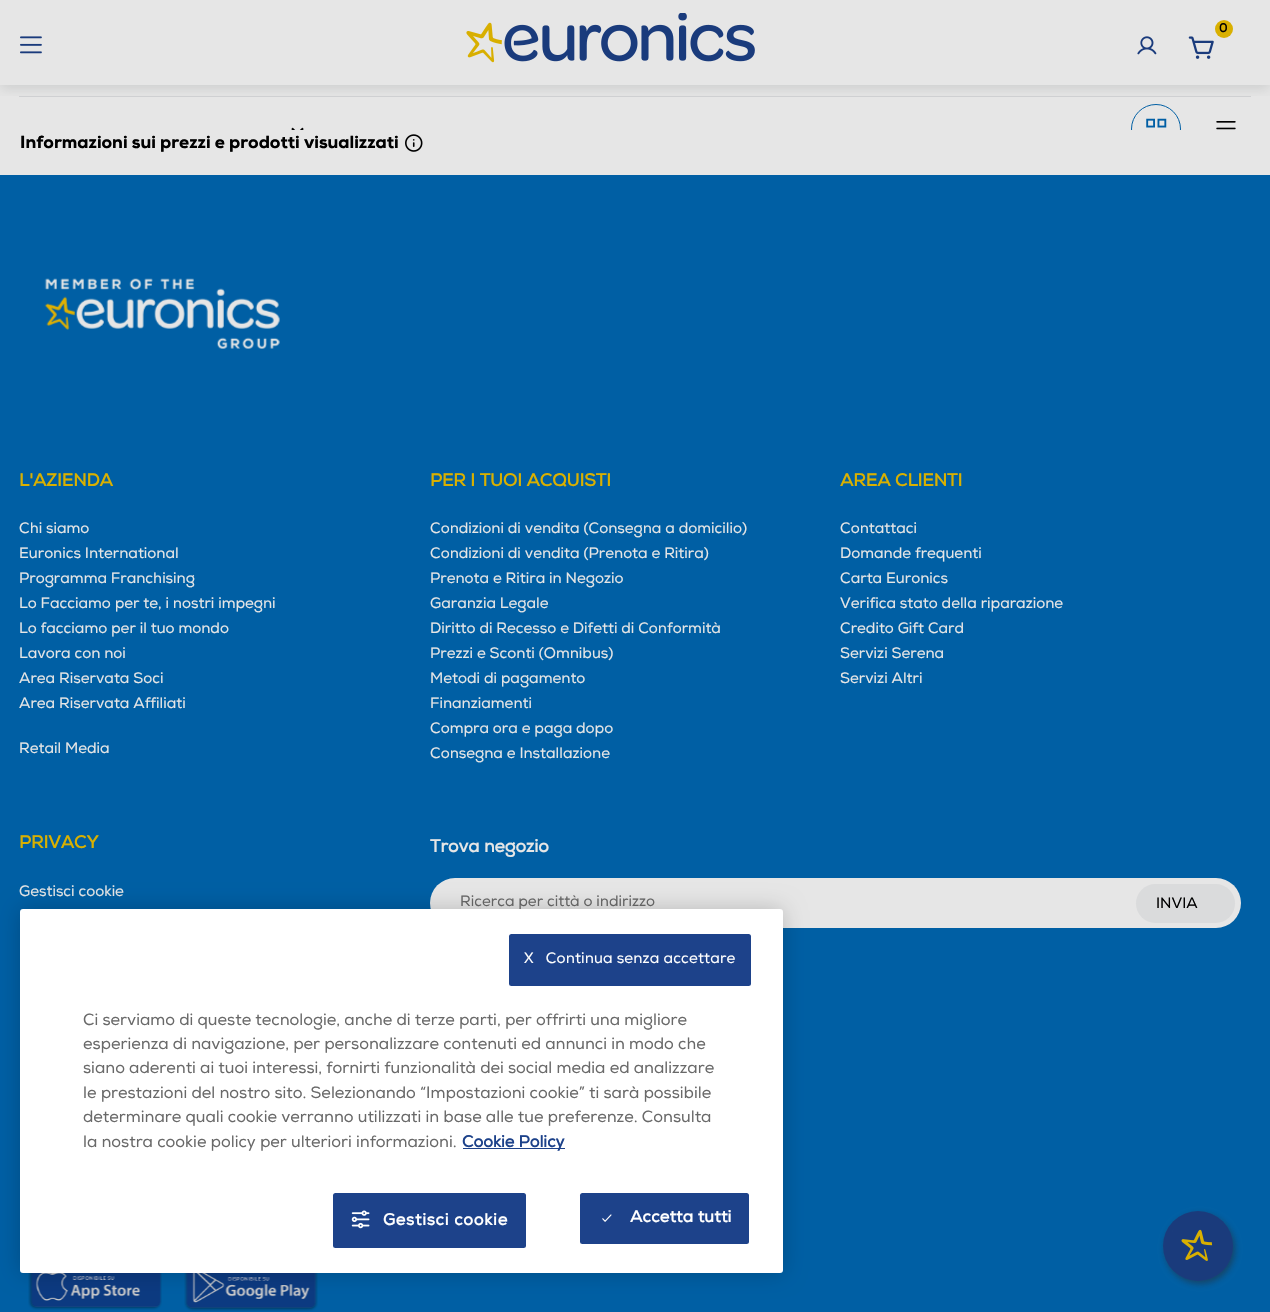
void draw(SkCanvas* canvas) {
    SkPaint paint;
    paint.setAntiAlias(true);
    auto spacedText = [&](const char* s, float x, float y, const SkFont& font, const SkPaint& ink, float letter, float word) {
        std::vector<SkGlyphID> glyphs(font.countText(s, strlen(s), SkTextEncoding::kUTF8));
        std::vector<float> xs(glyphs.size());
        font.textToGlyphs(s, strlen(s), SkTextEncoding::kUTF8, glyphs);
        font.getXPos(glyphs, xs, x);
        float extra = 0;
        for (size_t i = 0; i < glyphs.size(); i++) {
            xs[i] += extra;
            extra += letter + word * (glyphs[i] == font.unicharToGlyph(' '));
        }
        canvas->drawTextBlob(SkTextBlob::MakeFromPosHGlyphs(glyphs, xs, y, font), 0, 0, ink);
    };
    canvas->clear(0xFF005FA4);
    paint.setColor(0xFFE6E6E6);
    canvas->drawRect(SkRect::MakeXYWH(0, 0, 1270, 130), paint);
    paint.setColor(0xFFCFD0D2);
    canvas->drawRect(SkRect::MakeXYWH(19, 96, 1232, 1), paint);
    paint.setStyle(SkPaint::kStroke_Style);
    paint.setStrokeWidth(1);
    paint.setColor(0xFF005FA4);
    canvas->drawCircle(1156, 129, 24.5f, paint);
    canvas->save();
    canvas->clipRect(SkRect::MakeXYWH(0, 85, 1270, 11));
    paint.setStyle(SkPaint::kFill_Style);
    paint.setColor(0x294D4E4F);
    paint.setMaskFilter(SkMaskFilter::MakeBlur(kNormal_SkBlurStyle, 6));
    canvas->drawRect(SkRect::MakeXYWH(0, 4, 1270, 85), paint);
    paint.setMaskFilter(nullptr);
    canvas->restore();
    canvas->drawImageRect(SkImages::DeferredFromEncodedData(SkData::MakeFromFileName("img1.png")), SkRect::MakeXYWH(466, 13, 289, 50), SkSamplingOptions());
    paint.setColor(0xFFD9B000);
    canvas->drawCircle(1224, 29, 9, paint);
    SkFont font1(fontMgr->matchFamilyStyle("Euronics", SkFontStyle::Bold()), 12);
    font1.setSubpixel(true);
    paint.setColor(0xFF000000);
    canvas->drawString("0", 1219, 32, font1, paint);
    canvas->drawImageRect(SkImages::DeferredFromEncodedData(SkData::MakeFromFileName("img2.png")), SkRect::MakeXYWH(1188, 36, 26, 23), SkSamplingOptions());
    canvas->drawImageRect(SkImages::DeferredFromEncodedData(SkData::MakeFromFileName("img3.png")), SkRect::MakeXYWH(1137, 36, 20, 19), SkSamplingOptions());
    canvas->drawImageRect(SkImages::DeferredFromEncodedData(SkData::MakeFromFileName("img4.png")), SkRect::MakeXYWH(20, 36, 22, 18), SkSamplingOptions());
    canvas->drawImageRect(SkImages::DeferredFromEncodedData(SkData::MakeFromFileName("img5.png")), SkRect::MakeXYWH(291, 127, 13, 3), SkSamplingOptions());
    canvas->drawImageRect(SkImages::DeferredFromEncodedData(SkData::MakeFromFileName("img6.png")), SkRect::MakeXYWH(1146, 118, 21, 10), SkSamplingOptions());
    canvas->drawImageRect(SkImages::DeferredFromEncodedData(SkData::MakeFromFileName("img7.png")), SkRect::MakeXYWH(1216, 121, 20, 9), SkSamplingOptions());
    paint.setColor(0xFFE6E6E6);
    canvas->drawRect(SkRect::MakeXYWH(0, 130, 1270, 45), paint);
    SkFont font2(fontMgr->matchFamilyStyle("Euronics", SkFontStyle(900, SkFontStyle::kNormal_Width, SkFontStyle::kUpright_Slant)), 17.5f);
    font2.setSubpixel(true);
    paint.setColor(0xFF000000);
    canvas->drawString("Informazioni sui prezzi e prodotti visualizzati", 20, 148, font2, paint);
    canvas->drawImageRect(SkImages::DeferredFromEncodedData(SkData::MakeFromFileName("img8.png")), SkRect::MakeXYWH(405, 134, 18, 18), SkSamplingOptions());
    canvas->drawImageRect(SkImages::DeferredFromEncodedData(SkData::MakeFromFileName("img9.png")), SkRect::MakeXYWH(44, 278, 236, 71), SkSamplingOptions());
    SkFont font3(fontMgr->matchFamilyStyle("Euronics", SkFontStyle::Bold()), 17.5f);
    font3.setSubpixel(true);
    paint.setColor(0xFFD9B000);
    canvas->drawString("L'AZIENDA", 19, 486, font3, paint);
    SkFont font4(fontMgr->matchFamilyStyle("Euronics", SkFontStyle::Normal()), 15);
    font4.setSubpixel(true);
    paint.setColor(0xFFE6E6E6);
    canvas->drawString("Chi siamo", 19, 533, font4, paint);
    canvas->drawString("Euronics International", 19, 558, font4, paint);
    canvas->drawString("Programma Franchising", 19, 583, font4, paint);
    canvas->drawString("Lo Facciamo per te, i nostri impegni", 19, 608, font4, paint);
    canvas->drawString("Lo facciamo per il tuo mondo", 19, 633, font4, paint);
    canvas->drawString("Lavora con noi", 19, 658, font4, paint);
    canvas->drawString("Area Riservata Soci", 19, 683, font4, paint);
    canvas->drawString("Area Riservata Affiliati", 19, 708, font4, paint);
    canvas->drawString("Retail Media", 19, 753, font4, paint);
    paint.setColor(0xFFD9B000);
    canvas->drawString("PER I TUOI ACQUISTI", 430, 486, font3, paint);
    paint.setColor(0xFFE6E6E6);
    canvas->drawString("Condizioni di vendita (Consegna a domicilio)", 430, 533, font4, paint);
    canvas->drawString("Condizioni di vendita (Prenota e Ritira)", 430, 558, font4, paint);
    canvas->drawString("Prenota e Ritira in Negozio", 430, 583, font4, paint);
    canvas->drawString("Garanzia Legale", 430, 608, font4, paint);
    canvas->drawString("Diritto di Recesso e Difetti di Conformità", 430, 633, font4, paint);
    canvas->drawString("Prezzi e Sconti (Omnibus)", 430, 658, font4, paint);
    canvas->drawString("Metodi di pagamento", 430, 683, font4, paint);
    canvas->drawString("Finanziamenti", 430, 708, font4, paint);
    canvas->drawString("Compra ora e paga dopo", 430, 733, font4, paint);
    canvas->drawString("Consegna e Installazione", 430, 758, font4, paint);
    paint.setColor(0xFFD9B000);
    canvas->drawString("AREA CLIENTI", 840, 486, font3, paint);
    paint.setColor(0xFFE6E6E6);
    canvas->drawString("Contattaci", 840, 533, font4, paint);
    canvas->drawString("Domande frequenti", 840, 558, font4, paint);
    canvas->drawString("Carta Euronics", 840, 583, font4, paint);
    canvas->drawString("Verifica stato della riparazione", 840, 608, font4, paint);
    canvas->drawString("Credito Gift Card", 840, 633, font4, paint);
    canvas->drawString("Servizi Serena", 840, 658, font4, paint);
    canvas->drawString("Servizi Altri", 840, 683, font4, paint);
    paint.setColor(0xFFD9B000);
    canvas->drawString("PRIVACY", 19, 848, font3, paint);
    paint.setColor(0xFFE6E6E6);
    canvas->drawString("Gestisci cookie", 19, 896, font4, paint);
    canvas->drawString("Trova negozio", 430, 852, font3, paint);
    canvas->drawRoundRect(SkRect::MakeXYWH(430, 878, 811, 50), 25, 25, paint);
    paint.setColor(0xFF696969);
    canvas->drawString("Ricerca per città o indirizzo", 460, 906, font4, paint);
    paint.setColor(0xFFDADBDC);
    canvas->drawRoundRect(SkRect::MakeXYWH(1136, 884, 99, 39), 19.5f, 19.5f, paint);
    paint.setColor(0xFF000000);
    canvas->drawString("INVIA", 1156, 908, font4, paint);
    canvas->drawImageRect(SkImages::DeferredFromEncodedData(SkData::MakeFromFileName("img10.png")), SkRect::MakeXYWH(28, 1273, 134, 37), SkSamplingOptions());
    canvas->drawImageRect(SkImages::DeferredFromEncodedData(SkData::MakeFromFileName("img11.png")), SkRect::MakeXYWH(184, 1273, 134, 38), SkSamplingOptions());
    paint.setColor(0x33000000);
    paint.setMaskFilter(SkMaskFilter::MakeBlur(kNormal_SkBlurStyle, 11));
    canvas->drawRoundRect(SkRect::MakeXYWH(20, 909, 763, 364), 3, 3, paint);
    paint.setMaskFilter(nullptr);
    paint.setColor(0xFFFFFFFF);
    canvas->drawRoundRect(SkRect::MakeXYWH(20, 909, 763, 364), 3, 3, paint);
    paint.setColor(0xFF1D428A);
    canvas->drawRoundRect(SkRect::MakeXYWH(509, 934, 242, 52), 2.5f, 2.5f, paint);
    paint.setColor(0xFFFFFFFF);
    spacedText("X   Continua senza accettare", 524, 963, font4, paint, 0.15f, 0);
    SkFont font5(fontMgr->matchFamilyStyle("Euronics", SkFontStyle::Normal()), 16.25f);
    font5.setSubpixel(true);
    paint.setColor(0xFF696969);
    canvas->drawString("Ci serviamo di queste tecnologie, anche di terze parti, per offrirti una migliore", 83, 1025, font5, paint);
    canvas->drawString("esperienza di navigazione, per personalizzare contenuti ed annunci in modo che", 83, 1049, font5, paint);
    canvas->drawString("siano aderenti ai tuoi interessi, fornirti funzionalità dei social media ed analizzare", 83, 1073, font5, paint);
    canvas->drawString("le prestazioni del nostro sito. Selezionando “Impostazioni cookie” ti sarà possibile", 83, 1098, font5, paint);
    canvas->drawString("determinare quali cookie verranno utilizzati in base alle tue preferenze. Consulta", 83, 1122, font5, paint);
    canvas->drawString("la nostra cookie policy per ulteriori informazioni.", 83, 1147, font5, paint);
    paint.setColor(0xFF1D428A);
    canvas->drawRect(SkRect::MakeXYWH(463, 1148, 102, 1), paint);
    SkFont font6(fontMgr->matchFamilyStyle("Euronics", SkFontStyle::Bold()), 16.25f);
    font6.setSubpixel(true);
    canvas->drawString("Cookie Policy", 462, 1147, font6, paint);
    canvas->drawRoundRect(SkRect::MakeXYWH(333, 1193, 193, 55), 2.5f, 2.5f, paint);
    canvas->drawImageRect(SkImages::DeferredFromEncodedData(SkData::MakeFromFileName("img12.png")), SkRect::MakeXYWH(351, 1210, 19, 19), SkSamplingOptions());
    paint.setColor(0xFFFFFFFF);
    spacedText("Gestisci cookie", 383, 1225, font6, paint, 0.75f, 0);
    paint.setColor(0xFF1D428A);
    canvas->drawRoundRect(SkRect::MakeXYWH(580, 1193, 169, 51), 2.5f, 2.5f, paint);
    canvas->drawImageRect(SkImages::DeferredFromEncodedData(SkData::MakeFromFileName("img13.png")), SkRect::MakeXYWH(602, 1214, 10, 8), SkSamplingOptions());
    paint.setColor(0xFFFFFFFF);
    spacedText("Accetta tutti", 630, 1222, font6, paint, 0.2f, 0);
    paint.setColor(0x80292929);
    paint.setMaskFilter(SkMaskFilter::MakeBlur(kNormal_SkBlurStyle, 3));
    canvas->drawRoundRect(SkRect::MakeXYWH(1165, 1214, 70, 70), 35, 35, paint);
    paint.setMaskFilter(nullptr);
    paint.setColor(0xFF1A3B7C);
    canvas->drawCircle(1198, 1246, 35, paint);
    canvas->drawImageRect(SkImages::DeferredFromEncodedData(SkData::MakeFromFileName("img14.png")), SkRect::MakeXYWH(1172, 1229, 41, 43), SkSamplingOptions());
}
